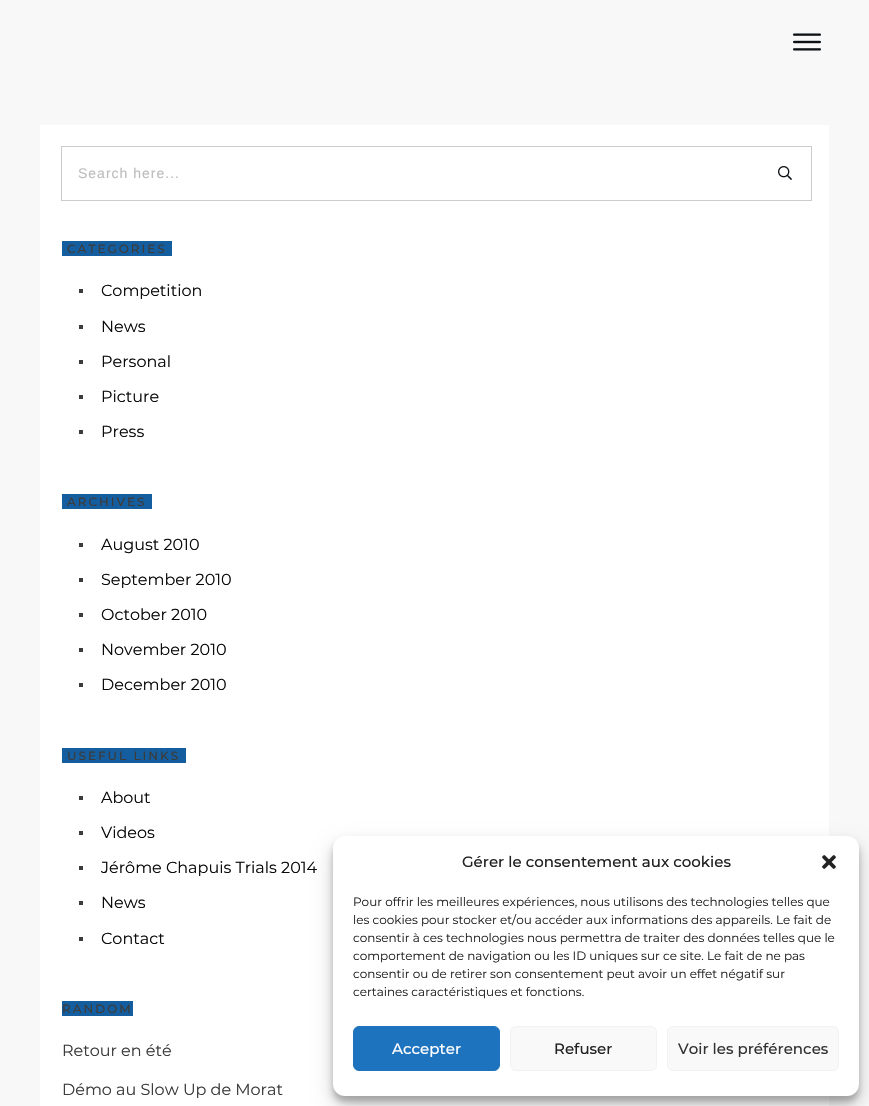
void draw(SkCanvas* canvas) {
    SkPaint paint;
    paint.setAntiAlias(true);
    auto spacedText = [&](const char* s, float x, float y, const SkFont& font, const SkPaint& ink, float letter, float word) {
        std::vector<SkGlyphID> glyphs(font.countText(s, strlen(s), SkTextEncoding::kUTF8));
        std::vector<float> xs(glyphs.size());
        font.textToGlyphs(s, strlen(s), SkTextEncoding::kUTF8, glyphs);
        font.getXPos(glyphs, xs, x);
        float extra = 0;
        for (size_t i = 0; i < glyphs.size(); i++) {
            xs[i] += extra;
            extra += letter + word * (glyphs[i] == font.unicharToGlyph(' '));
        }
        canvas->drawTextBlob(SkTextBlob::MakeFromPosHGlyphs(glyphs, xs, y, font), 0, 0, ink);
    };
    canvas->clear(0xFFF8F8F8);
    canvas->drawImageRect(SkImages::DeferredFromEncodedData(SkData::MakeFromFileName("img1.png")), SkRect::MakeXYWH(793, 33, 28, 18), SkSamplingOptions());
    paint.setColor(0xFFFFFFFF);
    canvas->drawRect(SkRect::MakeXYWH(40, 125, 789, 981), paint);
    paint.setStyle(SkPaint::kStroke_Style);
    paint.setStrokeWidth(1);
    paint.setColor(0xFFCCCCCC);
    canvas->drawRect(SkRect::MakeXYWH(61.5f, 146.5f, 750, 54), paint);
    SkFont font1(fontMgr->matchFamilyStyle("Liberation Sans", SkFontStyle::Normal()), 14);
    font1.setSubpixel(true);
    paint.setStyle(SkPaint::kFill_Style);
    paint.setColor(0xFFBCBCBC);
    spacedText("Search here...", 78, 178, font1, paint, 1, 0);
    canvas->drawImageRect(SkImages::DeferredFromEncodedData(SkData::MakeFromFileName("img2.png")), SkRect::MakeXYWH(778, 166, 14, 14), SkSamplingOptions());
    paint.setColor(0xFF145E9F);
    canvas->drawRect(SkRect::MakeXYWH(62, 241, 110, 15), paint);
    SkFont font2(fontMgr->matchFamilyStyle("Montserrat", SkFontStyle(500, SkFontStyle::kNormal_Width, SkFontStyle::kUpright_Slant)), 12);
    font2.setSubpixel(true);
    paint.setColor(0xFF3B3B3B);
    spacedText("CATEGORIES", 67, 253, font2, paint, 2, 0);
    canvas->drawRect(SkRect::MakeXYWH(79, 289, 4, 4), paint);
    SkFont font3(fontMgr->matchFamilyStyle("Montserrat", SkFontStyle::Normal()), 16);
    font3.setSubpixel(true);
    paint.setColor(0xFF0A0A0A);
    canvas->drawString("Competition", 101, 296, font3, paint);
    paint.setColor(0xFF3B3B3B);
    canvas->drawRect(SkRect::MakeXYWH(79, 325, 4, 4), paint);
    paint.setColor(0xFF0A0A0A);
    canvas->drawString("News", 101, 332, font3, paint);
    paint.setColor(0xFF3B3B3B);
    canvas->drawRect(SkRect::MakeXYWH(79, 360, 4, 4), paint);
    paint.setColor(0xFF0A0A0A);
    canvas->drawString("Personal", 101, 367, font3, paint);
    paint.setColor(0xFF3B3B3B);
    canvas->drawRect(SkRect::MakeXYWH(79, 395, 4, 4), paint);
    paint.setColor(0xFF0A0A0A);
    canvas->drawString("Picture", 101, 402, font3, paint);
    paint.setColor(0xFF3B3B3B);
    canvas->drawRect(SkRect::MakeXYWH(79, 430, 4, 4), paint);
    paint.setColor(0xFF0A0A0A);
    canvas->drawString("Press", 101, 437, font3, paint);
    paint.setColor(0xFF145E9F);
    canvas->drawRect(SkRect::MakeXYWH(62, 494, 90, 15), paint);
    paint.setColor(0xFF3B3B3B);
    spacedText("ARCHIVES", 67, 506, font2, paint, 2, 0);
    canvas->drawRect(SkRect::MakeXYWH(79, 543, 4, 4), paint);
    paint.setColor(0xFF0A0A0A);
    canvas->drawString("August 2010", 101, 550, font3, paint);
    paint.setColor(0xFF3B3B3B);
    canvas->drawRect(SkRect::MakeXYWH(79, 578, 4, 4), paint);
    paint.setColor(0xFF0A0A0A);
    canvas->drawString("September 2010", 101, 585, font3, paint);
    paint.setColor(0xFF3B3B3B);
    canvas->drawRect(SkRect::MakeXYWH(79, 613, 4, 4), paint);
    paint.setColor(0xFF0A0A0A);
    canvas->drawString("October 2010", 101, 620, font3, paint);
    paint.setColor(0xFF3B3B3B);
    canvas->drawRect(SkRect::MakeXYWH(79, 648, 4, 4), paint);
    paint.setColor(0xFF0A0A0A);
    canvas->drawString("November 2010", 101, 655, font3, paint);
    paint.setColor(0xFF3B3B3B);
    canvas->drawRect(SkRect::MakeXYWH(79, 683, 4, 4), paint);
    paint.setColor(0xFF0A0A0A);
    canvas->drawString("December 2010", 101, 690, font3, paint);
    paint.setColor(0xFF145E9F);
    canvas->drawRect(SkRect::MakeXYWH(62, 748, 124, 15), paint);
    paint.setColor(0xFF3B3B3B);
    spacedText("USEFUL LINKS", 67, 760, font2, paint, 2, 0);
    canvas->drawRect(SkRect::MakeXYWH(79, 796, 4, 4), paint);
    paint.setColor(0xFF0A0A0A);
    canvas->drawString("About", 101, 803, font3, paint);
    paint.setColor(0xFF3B3B3B);
    canvas->drawRect(SkRect::MakeXYWH(79, 831, 4, 4), paint);
    paint.setColor(0xFF0A0A0A);
    canvas->drawString("Videos", 101, 838, font3, paint);
    paint.setColor(0xFF3B3B3B);
    canvas->drawRect(SkRect::MakeXYWH(79, 866, 4, 4), paint);
    paint.setColor(0xFF0A0A0A);
    canvas->drawString("Jérôme Chapuis Trials 2014", 101, 873, font3, paint);
    paint.setColor(0xFF3B3B3B);
    canvas->drawRect(SkRect::MakeXYWH(79, 901, 4, 4), paint);
    paint.setColor(0xFF0A0A0A);
    canvas->drawString("News", 101, 908, font3, paint);
    paint.setColor(0xFF3B3B3B);
    canvas->drawRect(SkRect::MakeXYWH(79, 937, 4, 4), paint);
    paint.setColor(0xFF0A0A0A);
    canvas->drawString("Contact", 101, 944, font3, paint);
    paint.setColor(0xFF145E9F);
    canvas->drawRect(SkRect::MakeXYWH(62, 1001, 71, 15), paint);
    paint.setColor(0xFF3B3B3B);
    spacedText("RANDOM", 62, 1013, font2, paint, 2, 0);
    canvas->drawString("Retour en été", 62, 1056, font3, paint);
    canvas->drawString("Démo au Slow Up de Morat", 62, 1095, font3, paint);
    paint.setColor(0x3B000000);
    paint.setMaskFilter(SkMaskFilter::MakeBlur(kNormal_SkBlurStyle, 3));
    canvas->drawRoundRect(SkRect::MakeXYWH(333, 842, 526, 260), 12, 12, paint);
    paint.setMaskFilter(nullptr);
    paint.setColor(0x30000000);
    paint.setMaskFilter(SkMaskFilter::MakeBlur(kNormal_SkBlurStyle, 10));
    canvas->drawRoundRect(SkRect::MakeXYWH(333, 846, 526, 260), 12, 12, paint);
    paint.setMaskFilter(nullptr);
    paint.setColor(0xFFFFFFFF);
    canvas->drawRoundRect(SkRect::MakeXYWH(333, 836, 526, 260), 12, 12, paint);
    SkFont font4(fontMgr->matchFamilyStyle("Montserrat", SkFontStyle(500, SkFontStyle::kNormal_Width, SkFontStyle::kUpright_Slant)), 15);
    font4.setSubpixel(true);
    paint.setColor(0xFF222222);
    canvas->drawString("Gérer le consentement aux cookies", 462, 867, font4, paint);
    canvas->drawImageRect(SkImages::DeferredFromEncodedData(SkData::MakeFromFileName("img3.png")), SkRect::MakeXYWH(822, 855, 14, 14), SkSamplingOptions());
    SkFont font5(fontMgr->matchFamilyStyle("Montserrat", SkFontStyle::Normal()), 12);
    font5.setSubpixel(true);
    canvas->drawString("Pour offrir les meilleures expériences, nous utilisons des technologies telles que", 353, 906, font5, paint);
    canvas->drawString("les cookies pour stocker et/ou accéder aux informations des appareils. Le fait de", 353, 924, font5, paint);
    canvas->drawString("consentir à ces technologies nous permettra de traiter des données telles que le", 353, 942, font5, paint);
    canvas->drawString("comportement de navigation ou les ID uniques sur ce site. Le fait de ne pas", 353, 960, font5, paint);
    canvas->drawString("consentir ou de retirer son consentement peut avoir un effet négatif sur", 353, 978, font5, paint);
    canvas->drawString("certaines caractéristiques et fonctions.", 353, 996, font5, paint);
    paint.setColor(0xFF1E73BE);
    canvas->drawRoundRect(SkRect::MakeXYWH(353.5f, 1026.5f, 146, 44), 5.5f, 5.5f, paint);
    paint.setStyle(SkPaint::kStroke_Style);
    canvas->drawRoundRect(SkRect::MakeXYWH(353.5f, 1026.5f, 146, 44), 5.5f, 5.5f, paint);
    paint.setStyle(SkPaint::kFill_Style);
    paint.setColor(0xFFFFFFFF);
    canvas->drawString("Accepter", 392, 1054, font4, paint);
    paint.setColor(0xFFF9F9F9);
    canvas->drawRoundRect(SkRect::MakeXYWH(510.5f, 1026.5f, 146, 44), 5.5f, 5.5f, paint);
    paint.setStyle(SkPaint::kStroke_Style);
    paint.setColor(0xFFF2F2F2);
    canvas->drawRoundRect(SkRect::MakeXYWH(510.5f, 1026.5f, 146, 44), 5.5f, 5.5f, paint);
    paint.setStyle(SkPaint::kFill_Style);
    paint.setColor(0xFF222222);
    canvas->drawString("Refuser", 554, 1054, font4, paint);
    paint.setColor(0xFFF9F9F9);
    canvas->drawRoundRect(SkRect::MakeXYWH(667.5f, 1026.5f, 171, 44), 5.5f, 5.5f, paint);
    paint.setStyle(SkPaint::kStroke_Style);
    paint.setColor(0xFFF2F2F2);
    canvas->drawRoundRect(SkRect::MakeXYWH(667.5f, 1026.5f, 171, 44), 5.5f, 5.5f, paint);
    paint.setStyle(SkPaint::kFill_Style);
    paint.setColor(0xFF333333);
    canvas->drawString("Voir les préférences", 678, 1054, font4, paint);
}
